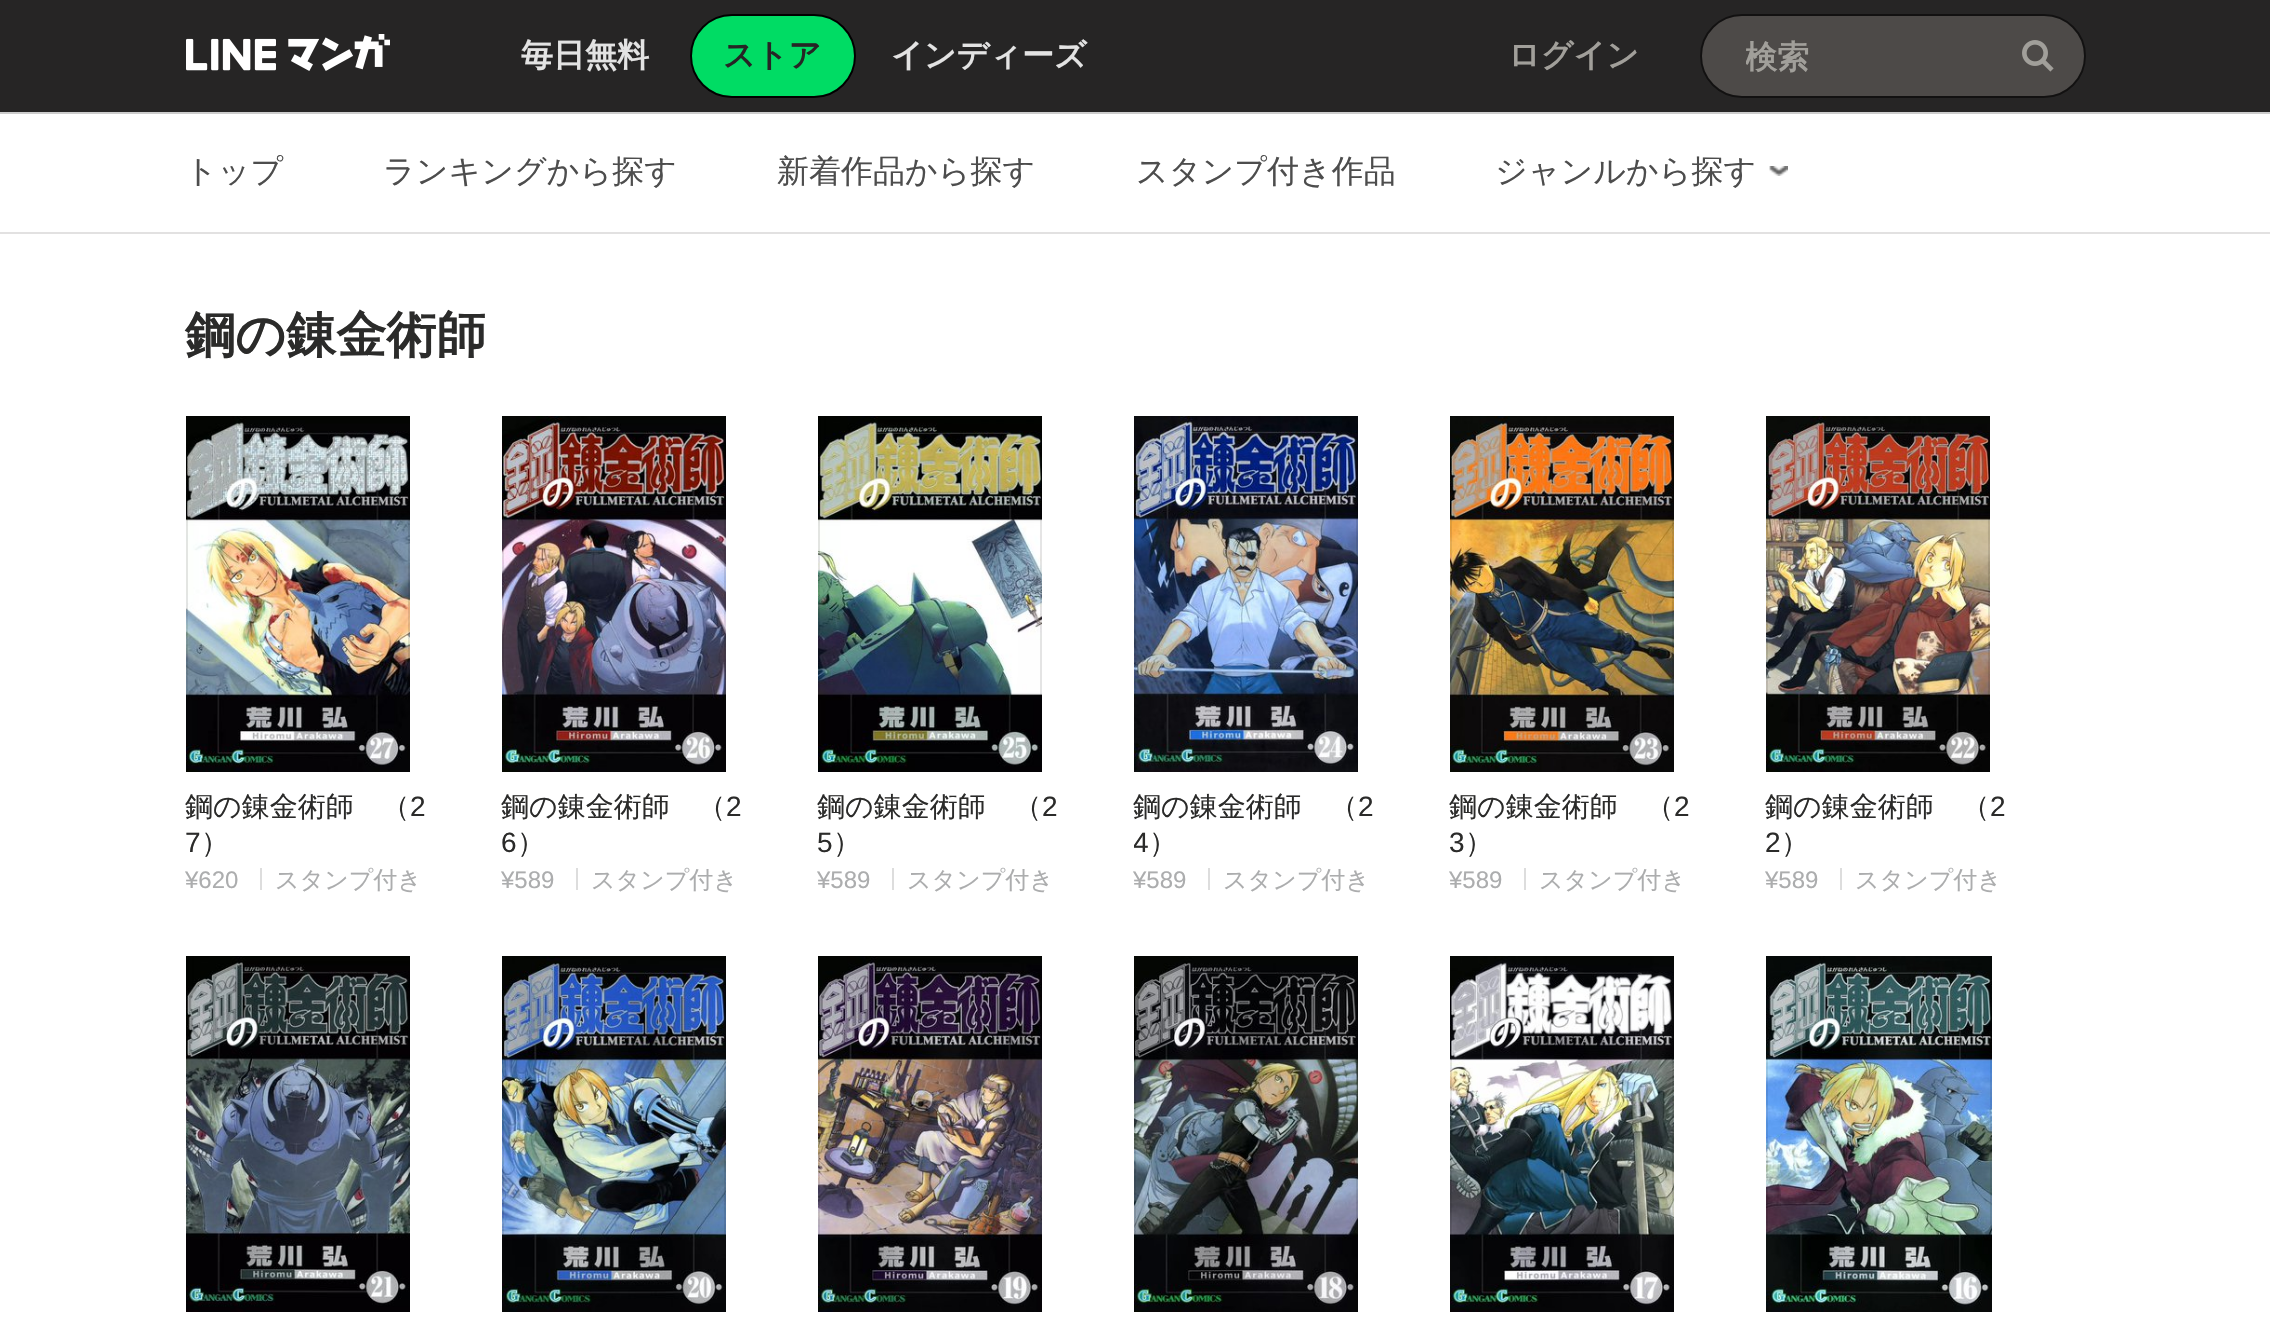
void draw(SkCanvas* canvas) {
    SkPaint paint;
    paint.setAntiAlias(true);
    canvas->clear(0xFFFFFFFF);
    paint.setColor(0xFF262525);
    canvas->drawRect(SkRect::MakeXYWH(0, 0, 2270, 112), paint);
    canvas->drawImageRect(SkImages::DeferredFromEncodedData(SkData::MakeFromFileName("img1.png")), SkRect::MakeXYWH(186, 34, 204, 37), SkSamplingOptions());
    SkFont font1(fontMgr->matchFamilyStyle("WenQuanYi Zen Hei", SkFontStyle::Bold()), 32);
    font1.setSubpixel(true);
    paint.setColor(0xFFE3E3E3);
    canvas->drawString("毎日無料", 521, 66, font1, paint);
    paint.setColor(0xFF00DC64);
    canvas->drawRoundRect(SkRect::MakeXYWH(691, 15, 164, 82), 41, 41, paint);
    paint.setStyle(SkPaint::kStroke_Style);
    paint.setStrokeWidth(2);
    paint.setColor(0xFF000000);
    canvas->drawRoundRect(SkRect::MakeXYWH(691, 15, 164, 82), 41, 41, paint);
    paint.setStyle(SkPaint::kFill_Style);
    paint.setColor(0xFF262525);
    canvas->drawString("ストア", 723, 66, font1, paint);
    paint.setColor(0xFFE3E3E3);
    canvas->drawString("インディーズ", 891, 66, font1, paint);
    paint.setColor(0xFFA19F9A);
    canvas->drawString("ログイン", 1508, 66, font1, paint);
    paint.setColor(0xFF4D4A48);
    canvas->drawRoundRect(SkRect::MakeXYWH(1701, 15, 384, 82), 41, 41, paint);
    paint.setStyle(SkPaint::kStroke_Style);
    paint.setColor(0xFF121111);
    canvas->drawRoundRect(SkRect::MakeXYWH(1701, 15, 384, 82), 41, 41, paint);
    canvas->save();
    canvas->clipRect(SkRect::MakeXYWH(1746, 38, 256, 42));
    paint.setStyle(SkPaint::kFill_Style);
    paint.setColor(0xFFA19F9A);
    canvas->drawString("検索", 1745, 68, font1, paint);
    canvas->restore();
    canvas->drawImageRect(SkImages::DeferredFromEncodedData(SkData::MakeFromFileName("img2.png")), SkRect::MakeXYWH(2022, 40, 32, 32), SkSamplingOptions());
    paint.setColor(0xFFCCCCCC);
    canvas->drawRect(SkRect::MakeXYWH(0, 112, 2270, 2), paint);
    SkFont font2(fontMgr->matchFamilyStyle("WenQuanYi Zen Hei", SkFontStyle(500, SkFontStyle::kNormal_Width, SkFontStyle::kUpright_Slant)), 32);
    font2.setSubpixel(true);
    paint.setColor(0xFF4D4D4D);
    canvas->drawString("トップ", 185, 182, font2, paint);
    canvas->drawString("ランキングから探す", 383, 182, font2, paint);
    canvas->drawString("新着作品から探す", 777, 182, font2, paint);
    canvas->drawString("スタンプ付き作品", 1136, 182, font2, paint);
    canvas->drawString("ジャンルから探す", 1495, 182, font2, paint);
    canvas->drawImageRect(SkImages::DeferredFromEncodedData(SkData::MakeFromFileName("img3.png")), SkRect::MakeXYWH(1769, 166, 19, 10), SkSamplingOptions());
    paint.setColor(0xFFE2E1E1);
    canvas->drawRect(SkRect::MakeXYWH(0, 232, 2270, 2), paint);
    SkFont font3(fontMgr->matchFamilyStyle("WenQuanYi Zen Hei", SkFontStyle::Bold()), 50);
    font3.setSubpixel(true);
    paint.setColor(0xFF2B2B2A);
    canvas->drawString("鋼の錬金術師", 185, 352, font3, paint);
    canvas->drawImageRect(SkImages::DeferredFromEncodedData(SkData::MakeFromFileName("img4.png")), SkRect::MakeXYWH(186, 416, 224, 356), SkSamplingOptions());
    paint.setStyle(SkPaint::kStroke_Style);
    paint.setColor(0x1A000000);
    canvas->drawRect(SkRect::MakeXYWH(187, 417, 222, 354), paint);
    SkFont font4(fontMgr->matchFamilyStyle("WenQuanYi Zen Hei", SkFontStyle(500, SkFontStyle::kNormal_Width, SkFontStyle::kUpright_Slant)), 28);
    font4.setSubpixel(true);
    paint.setStyle(SkPaint::kFill_Style);
    paint.setColor(0xFF2B2B2A);
    canvas->drawString("鋼の錬金術師　（", 185, 816, font4, paint);
    SkFont font5(fontMgr->matchFamilyStyle("Liberation Sans", SkFontStyle::Normal()), 28);
    font5.setSubpixel(true);
    canvas->drawString("2", 410, 816, font5, paint);
    canvas->drawString("7", 185, 852, font5, paint);
    canvas->drawString("）", 201, 852, font4, paint);
    SkFont font6(fontMgr->matchFamilyStyle("Liberation Sans", SkFontStyle::Normal()), 24);
    font6.setSubpixel(true);
    paint.setColor(0xFFACADAE);
    canvas->drawString("¥620", 185, 888, font6, paint);
    paint.setColor(0xFFDDDDDD);
    canvas->drawRect(SkRect::MakeXYWH(260, 868, 2, 22), paint);
    SkFont font7(fontMgr->matchFamilyStyle("WenQuanYi Zen Hei", SkFontStyle(500, SkFontStyle::kNormal_Width, SkFontStyle::kUpright_Slant)), 24);
    font7.setSubpixel(true);
    paint.setColor(0xFFACADAE);
    canvas->drawString("スタンプ付き", 275, 888, font7, paint);
    canvas->drawImageRect(SkImages::DeferredFromEncodedData(SkData::MakeFromFileName("img5.png")), SkRect::MakeXYWH(502, 416, 224, 356), SkSamplingOptions());
    paint.setStyle(SkPaint::kStroke_Style);
    paint.setColor(0x1A000000);
    canvas->drawRect(SkRect::MakeXYWH(503, 417, 222, 354), paint);
    paint.setStyle(SkPaint::kFill_Style);
    paint.setColor(0xFF2B2B2A);
    canvas->drawString("鋼の錬金術師　（", 501, 816, font4, paint);
    canvas->drawString("2", 726, 816, font5, paint);
    canvas->drawString("6", 501, 852, font5, paint);
    canvas->drawString("）", 517, 852, font4, paint);
    paint.setColor(0xFFACADAE);
    canvas->drawString("¥589", 501, 888, font6, paint);
    paint.setColor(0xFFDDDDDD);
    canvas->drawRect(SkRect::MakeXYWH(576, 868, 2, 22), paint);
    paint.setColor(0xFFACADAE);
    canvas->drawString("スタンプ付き", 591, 888, font7, paint);
    canvas->drawImageRect(SkImages::DeferredFromEncodedData(SkData::MakeFromFileName("img6.png")), SkRect::MakeXYWH(818, 416, 224, 356), SkSamplingOptions());
    paint.setStyle(SkPaint::kStroke_Style);
    paint.setColor(0x1A000000);
    canvas->drawRect(SkRect::MakeXYWH(819, 417, 222, 354), paint);
    paint.setStyle(SkPaint::kFill_Style);
    paint.setColor(0xFF2B2B2A);
    canvas->drawString("鋼の錬金術師　（", 817, 816, font4, paint);
    canvas->drawString("2", 1042, 816, font5, paint);
    canvas->drawString("5", 817, 852, font5, paint);
    canvas->drawString("）", 833, 852, font4, paint);
    paint.setColor(0xFFACADAE);
    canvas->drawString("¥589", 817, 888, font6, paint);
    paint.setColor(0xFFDDDDDD);
    canvas->drawRect(SkRect::MakeXYWH(892, 868, 2, 22), paint);
    paint.setColor(0xFFACADAE);
    canvas->drawString("スタンプ付き", 907, 888, font7, paint);
    canvas->drawImageRect(SkImages::DeferredFromEncodedData(SkData::MakeFromFileName("img7.png")), SkRect::MakeXYWH(1134, 416, 224, 356), SkSamplingOptions());
    paint.setStyle(SkPaint::kStroke_Style);
    paint.setColor(0x1A000000);
    canvas->drawRect(SkRect::MakeXYWH(1135, 417, 222, 354), paint);
    paint.setStyle(SkPaint::kFill_Style);
    paint.setColor(0xFF2B2B2A);
    canvas->drawString("鋼の錬金術師　（", 1133, 816, font4, paint);
    canvas->drawString("2", 1358, 816, font5, paint);
    canvas->save();
    canvas->clipRect(SkRect::MakeXYWH(1134, 772, 280, 88));
    canvas->drawString("4", 1133, 852, font5, paint);
    canvas->restore();
    canvas->drawString("）", 1149, 852, font4, paint);
    paint.setColor(0xFFACADAE);
    canvas->drawString("¥589", 1133, 888, font6, paint);
    paint.setColor(0xFFDDDDDD);
    canvas->drawRect(SkRect::MakeXYWH(1208, 868, 2, 22), paint);
    paint.setColor(0xFFACADAE);
    canvas->drawString("スタンプ付き", 1223, 888, font7, paint);
    canvas->drawImageRect(SkImages::DeferredFromEncodedData(SkData::MakeFromFileName("img8.png")), SkRect::MakeXYWH(1450, 416, 224, 356), SkSamplingOptions());
    paint.setStyle(SkPaint::kStroke_Style);
    paint.setColor(0x1A000000);
    canvas->drawRect(SkRect::MakeXYWH(1451, 417, 222, 354), paint);
    paint.setStyle(SkPaint::kFill_Style);
    paint.setColor(0xFF2B2B2A);
    canvas->drawString("鋼の錬金術師　（", 1449, 816, font4, paint);
    canvas->drawString("2", 1674, 816, font5, paint);
    canvas->drawString("3", 1449, 852, font5, paint);
    canvas->drawString("）", 1465, 852, font4, paint);
    paint.setColor(0xFFACADAE);
    canvas->drawString("¥589", 1449, 888, font6, paint);
    paint.setColor(0xFFDDDDDD);
    canvas->drawRect(SkRect::MakeXYWH(1524, 868, 2, 22), paint);
    paint.setColor(0xFFACADAE);
    canvas->drawString("スタンプ付き", 1539, 888, font7, paint);
    canvas->drawImageRect(SkImages::DeferredFromEncodedData(SkData::MakeFromFileName("img9.png")), SkRect::MakeXYWH(1766, 416, 224, 356), SkSamplingOptions());
    paint.setStyle(SkPaint::kStroke_Style);
    paint.setColor(0x1A000000);
    canvas->drawRect(SkRect::MakeXYWH(1767, 417, 222, 354), paint);
    paint.setStyle(SkPaint::kFill_Style);
    paint.setColor(0xFF2B2B2A);
    canvas->drawString("鋼の錬金術師　（", 1765, 816, font4, paint);
    canvas->drawString("2", 1990, 816, font5, paint);
    canvas->drawString("2", 1765, 852, font5, paint);
    canvas->drawString("）", 1781, 852, font4, paint);
    paint.setColor(0xFFACADAE);
    canvas->drawString("¥589", 1765, 888, font6, paint);
    paint.setColor(0xFFDDDDDD);
    canvas->drawRect(SkRect::MakeXYWH(1840, 868, 2, 22), paint);
    paint.setColor(0xFFACADAE);
    canvas->drawString("スタンプ付き", 1855, 888, font7, paint);
    canvas->drawImageRect(SkImages::DeferredFromEncodedData(SkData::MakeFromFileName("img10.png")), SkRect::MakeXYWH(186, 956, 224, 356), SkSamplingOptions());
    paint.setStyle(SkPaint::kStroke_Style);
    paint.setColor(0x1A000000);
    canvas->drawRect(SkRect::MakeXYWH(187, 957, 222, 354), paint);
    canvas->drawImageRect(SkImages::DeferredFromEncodedData(SkData::MakeFromFileName("img11.png")), SkRect::MakeXYWH(502, 956, 224, 356), SkSamplingOptions());
    canvas->drawRect(SkRect::MakeXYWH(503, 957, 222, 354), paint);
    canvas->drawImageRect(SkImages::DeferredFromEncodedData(SkData::MakeFromFileName("img12.png")), SkRect::MakeXYWH(818, 956, 224, 356), SkSamplingOptions());
    canvas->drawRect(SkRect::MakeXYWH(819, 957, 222, 354), paint);
    canvas->drawImageRect(SkImages::DeferredFromEncodedData(SkData::MakeFromFileName("img13.png")), SkRect::MakeXYWH(1134, 956, 224, 356), SkSamplingOptions());
    canvas->drawRect(SkRect::MakeXYWH(1135, 957, 222, 354), paint);
    canvas->drawImageRect(SkImages::DeferredFromEncodedData(SkData::MakeFromFileName("img14.png")), SkRect::MakeXYWH(1450, 956, 224, 356), SkSamplingOptions());
    canvas->drawRect(SkRect::MakeXYWH(1451, 957, 222, 354), paint);
    canvas->drawImageRect(SkImages::DeferredFromEncodedData(SkData::MakeFromFileName("img15.png")), SkRect::MakeXYWH(1766, 956, 226, 356), SkSamplingOptions());
    canvas->drawRect(SkRect::MakeXYWH(1767, 957, 224, 354), paint);
}
